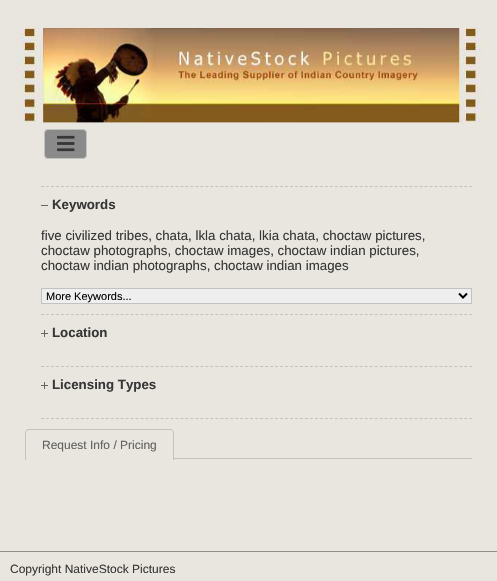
void draw(SkCanvas* canvas) {
    SkPaint paint;
    paint.setAntiAlias(true);
    canvas->clear(0xFFE9E6DF);
    canvas->drawImageRect(SkImages::DeferredFromEncodedData(SkData::MakeFromFileName("img1.png")), SkRect::MakeXYWH(16, 28, 466, 95), SkSamplingOptions());
    paint.setColor(0xFF8B8A8A);
    canvas->drawRoundRect(SkRect::MakeXYWH(44.5f, 129.5f, 42, 29), 3.5f, 3.5f, paint);
    paint.setStyle(SkPaint::kStroke_Style);
    paint.setStrokeWidth(1);
    paint.setColor(0xFFC3C2C0);
    canvas->drawRoundRect(SkRect::MakeXYWH(44.5f, 129.5f, 42, 29), 3.5f, 3.5f, paint);
    canvas->drawImageRect(SkImages::DeferredFromEncodedData(SkData::MakeFromFileName("img2.png")), SkRect::MakeXYWH(57, 135, 18, 17), SkSamplingOptions());
    paint.setPathEffect(SkDashPathEffect::Make({{3, 1.98f}}, 0));
    canvas->drawPath(SkPathBuilder().moveTo(41, 186.5f).lineTo(472, 186.5f).detach(), paint);
    paint.setPathEffect(nullptr);
    paint.setPathEffect(SkDashPathEffect::Make({{3, 1.98f}}, 0));
    canvas->drawPath(SkPathBuilder().moveTo(41, 314.5f).lineTo(472, 314.5f).detach(), paint);
    paint.setPathEffect(nullptr);
    SkFont font1(fontMgr->matchFamilyStyle("Liberation Sans", SkFontStyle::Bold()), 13.3f);
    font1.setSubpixel(true);
    paint.setStyle(SkPaint::kFill_Style);
    paint.setColor(0xFF373737);
    canvas->drawString("Keywords", 52, 209, font1, paint);
    paint.setColor(0xFF666666);
    canvas->drawRect(SkRect::MakeXYWH(41, 205, 7, 1), paint);
    SkFont font2(fontMgr->matchFamilyStyle("Liberation Sans", SkFontStyle::Normal()), 13.3f);
    font2.setSubpixel(true);
    paint.setColor(0xFF373737);
    canvas->drawString("five civilized tribes, chata, lkla chata, lkia chata, choctaw pictures,", 41, 240, font2, paint);
    canvas->drawString("choctaw photographs, choctaw images, choctaw indian pictures,", 41, 255, font2, paint);
    canvas->drawString("choctaw indian photographs, choctaw indian images", 41, 270, font2, paint);
    paint.setColor(0xFFEFEFEF);
    canvas->drawRect(SkRect::MakeXYWH(41.5f, 288.5f, 430, 15), paint);
    paint.setStyle(SkPaint::kStroke_Style);
    paint.setColor(0xFFC3C2C0);
    canvas->drawRect(SkRect::MakeXYWH(41.5f, 288.5f, 430, 15), paint);
    paint.setStrokeWidth(2);
    paint.setColor(0xFF000000);
    canvas->drawPath(SkPathBuilder().moveTo(459, 293.5f).lineTo(463, 297.5f).lineTo(467, 293.5f).detach(), paint);
    SkFont font3(fontMgr->matchFamilyStyle("Liberation Sans", SkFontStyle::Normal()), 11);
    font3.setSubpixel(true);
    paint.setStyle(SkPaint::kFill_Style);
    canvas->drawString("More Keywords...", 46, 300, font3, paint);
    paint.setStyle(SkPaint::kStroke_Style);
    paint.setStrokeWidth(1);
    paint.setColor(0xFFC3C2C0);
    paint.setPathEffect(SkDashPathEffect::Make({{3, 1.98f}}, 0));
    canvas->drawPath(SkPathBuilder().moveTo(41, 366.5f).lineTo(472, 366.5f).detach(), paint);
    paint.setPathEffect(nullptr);
    canvas->drawImageRect(SkImages::DeferredFromEncodedData(SkData::MakeFromFileName("img3.png")), SkRect::MakeXYWH(41, 330, 7, 7), SkSamplingOptions());
    paint.setStyle(SkPaint::kFill_Style);
    paint.setColor(0xFF373737);
    canvas->drawString("Location", 52, 337, font1, paint);
    paint.setStyle(SkPaint::kStroke_Style);
    paint.setColor(0xFFC3C2C0);
    paint.setPathEffect(SkDashPathEffect::Make({{3, 1.98f}}, 0));
    canvas->drawPath(SkPathBuilder().moveTo(41, 418.5f).lineTo(472, 418.5f).detach(), paint);
    paint.setPathEffect(nullptr);
    canvas->drawImageRect(SkImages::DeferredFromEncodedData(SkData::MakeFromFileName("img3.png")), SkRect::MakeXYWH(41, 382, 7, 7), SkSamplingOptions());
    paint.setStyle(SkPaint::kFill_Style);
    paint.setColor(0xFF373737);
    canvas->drawString("Licensing Types", 52, 389, font1, paint);
    paint.setColor(0xFFC3C2C0);
    canvas->drawRect(SkRect::MakeXYWH(174, 458, 298, 1), paint);
    canvas->drawPath(SkPathBuilder(SkPathFillType::kEvenOdd).moveTo(29, 429).lineTo(170, 429).cubicTo(172, 429, 174, 431, 174, 433).lineTo(174, 460).lineTo(25, 460).lineTo(25, 433).cubicTo(25, 431, 27, 429, 29, 429).close().moveTo(29, 430).lineTo(170, 430).cubicTo(172, 430, 173, 431, 173, 433).lineTo(173, 460).lineTo(26, 460).lineTo(26, 433).cubicTo(26, 431, 27, 430, 29, 430).close().detach(), paint);
    SkFont font4(fontMgr->matchFamilyStyle("Liberation Sans", SkFontStyle::Normal()), 12);
    font4.setSubpixel(true);
    paint.setColor(0xFF606060);
    canvas->drawString("Request Info / Pricing", 42, 449, font4, paint);
    paint.setColor(0xFF8F8E8D);
    canvas->drawRect(SkRect::MakeXYWH(0, 551, 497, 1), paint);
    paint.setColor(0xFF373737);
    canvas->drawString("Copyright NativeStock Pictures", 10, 573, font4, paint);
}
